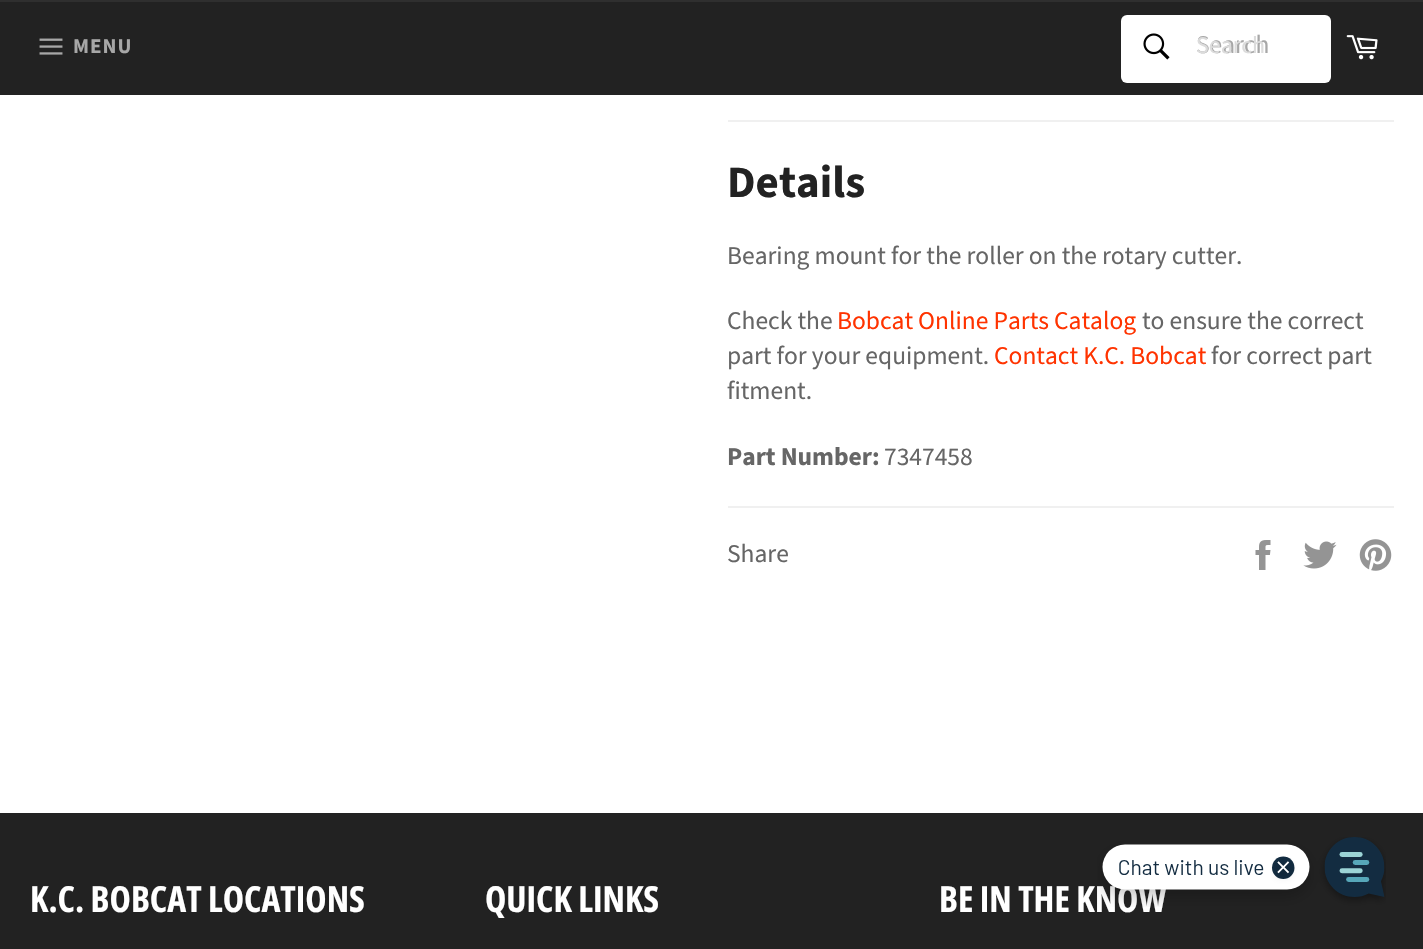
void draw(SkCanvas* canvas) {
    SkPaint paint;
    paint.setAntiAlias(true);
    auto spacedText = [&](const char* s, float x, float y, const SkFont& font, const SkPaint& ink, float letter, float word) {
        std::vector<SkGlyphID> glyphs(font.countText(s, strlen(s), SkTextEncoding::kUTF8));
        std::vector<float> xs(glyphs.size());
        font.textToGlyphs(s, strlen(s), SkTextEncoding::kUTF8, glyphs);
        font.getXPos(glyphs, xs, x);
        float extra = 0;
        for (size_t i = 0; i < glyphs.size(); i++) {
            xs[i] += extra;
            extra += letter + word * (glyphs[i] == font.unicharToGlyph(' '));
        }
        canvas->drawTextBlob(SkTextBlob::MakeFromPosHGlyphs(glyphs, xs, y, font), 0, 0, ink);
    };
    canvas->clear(0xFFFFFFFF);
    paint.setColor(0xFF222222);
    canvas->drawRect(SkRect::MakeXYWH(0, 2, 1423, 93), paint);
    paint.setColor(0xFF2F2F2F);
    canvas->drawRect(SkRect::MakeXYWH(0, 0, 1423, 2), paint);
    canvas->drawImageRect(SkImages::DeferredFromEncodedData(SkData::MakeFromFileName("img1.png")), SkRect::MakeXYWH(39, 38, 24, 17), SkSamplingOptions());
    SkFont font1(fontMgr->matchFamilyStyle("Source Sans Pro", SkFontStyle::Bold()), 21);
    font1.setSubpixel(true);
    paint.setColor(0xFFA7A7A7);
    spacedText("MENU", 73, 53, font1, paint, 1, 0);
    paint.setColor(0xFFFFFFFF);
    canvas->drawRoundRect(SkRect::MakeXYWH(1121, 15, 210, 68), 6, 6, paint);
    canvas->drawImageRect(SkImages::DeferredFromEncodedData(SkData::MakeFromFileName("img2.png")), SkRect::MakeXYWH(1143, 33, 27, 27), SkSamplingOptions());
    SkFont font2(fontMgr->matchFamilyStyle("Source Sans Pro", SkFontStyle::Normal()), 25.5f);
    font2.setSubpixel(true);
    paint.setColor(0xFFA7A7A7);
    canvas->drawString("Search", 1196, 53, font2, paint);
    SkFont font3(fontMgr->matchFamilyStyle("Source Sans Pro", SkFontStyle::Normal()), 24);
    font3.setSubpixel(true);
    paint.setColor(0xFFDCDCDC);
    canvas->drawString("Search", 1196, 53, font3, paint);
    canvas->drawImageRect(SkImages::DeferredFromEncodedData(SkData::MakeFromFileName("img3.png")), SkRect::MakeXYWH(1346, 35, 32, 25), SkSamplingOptions());
    paint.setColor(0xFFF0F0F0);
    canvas->drawRect(SkRect::MakeXYWH(728, 120, 666, 2), paint);
    SkFont font4(fontMgr->matchFamilyStyle("Source Sans Pro", SkFontStyle::Bold()), 45);
    font4.setSubpixel(true);
    paint.setColor(0xFF222222);
    canvas->drawString("Details", 727, 197, font4, paint);
    paint.setColor(0xFF666666);
    canvas->drawString("Bearing mount for the roller on the rotary cutter.", 727, 264, font2, paint);
    canvas->drawString("Check the", 727, 329, font2, paint);
    paint.setColor(0xFFFF3300);
    canvas->drawString("Bobcat Online Parts Catalog", 837, 329, font2, paint);
    paint.setColor(0xFF666666);
    canvas->drawString("to ensure the correct", 1142, 329, font2, paint);
    canvas->drawString("part for your equipment.", 727, 364, font2, paint);
    paint.setColor(0xFFFF3300);
    canvas->drawString("Contact K.C. Bobcat", 994, 364, font2, paint);
    paint.setColor(0xFF666666);
    canvas->drawString("for correct part", 1211, 364, font2, paint);
    canvas->drawString("fitment.", 727, 399, font2, paint);
    SkFont font5(fontMgr->matchFamilyStyle("Source Sans Pro", SkFontStyle::Bold()), 25.5f);
    font5.setSubpixel(true);
    canvas->drawString("Part Number:", 727, 465, font5, paint);
    canvas->drawString("7347458", 884, 465, font2, paint);
    paint.setColor(0xFFF0F0F0);
    canvas->drawRect(SkRect::MakeXYWH(728, 506, 666, 2), paint);
    paint.setColor(0xFF666666);
    canvas->drawString("Share", 727, 562, font2, paint);
    canvas->drawImageRect(SkImages::DeferredFromEncodedData(SkData::MakeFromFileName("img4.png")), SkRect::MakeXYWH(1255, 540, 16, 30), SkSamplingOptions());
    canvas->drawImageRect(SkImages::DeferredFromEncodedData(SkData::MakeFromFileName("img5.png")), SkRect::MakeXYWH(1303, 541, 34, 28), SkSamplingOptions());
    canvas->drawImageRect(SkImages::DeferredFromEncodedData(SkData::MakeFromFileName("img6.png")), SkRect::MakeXYWH(1359, 539, 33, 32), SkSamplingOptions());
    paint.setColor(0xFF222222);
    canvas->drawRect(SkRect::MakeXYWH(0, 813, 1423, 136), paint);
    SkFont font6(fontMgr->matchFamilyStyle("Open Sans Condensed", SkFontStyle::Bold()), 36);
    font6.setSubpixel(true);
    paint.setColor(0xFFFFFFFF);
    canvas->drawString("K.C. BOBCAT LOCATIONS", 30, 912, font6, paint);
    canvas->drawString("QUICK LINKS", 485, 912, font6, paint);
    canvas->drawString("BE IN THE KNOW", 939, 912, font6, paint);
    canvas->drawImageRect(SkImages::DeferredFromEncodedData(SkData::MakeFromFileName("img7.png")), SkRect::MakeXYWH(1097, 837, 289, 70), SkSamplingOptions());
}
